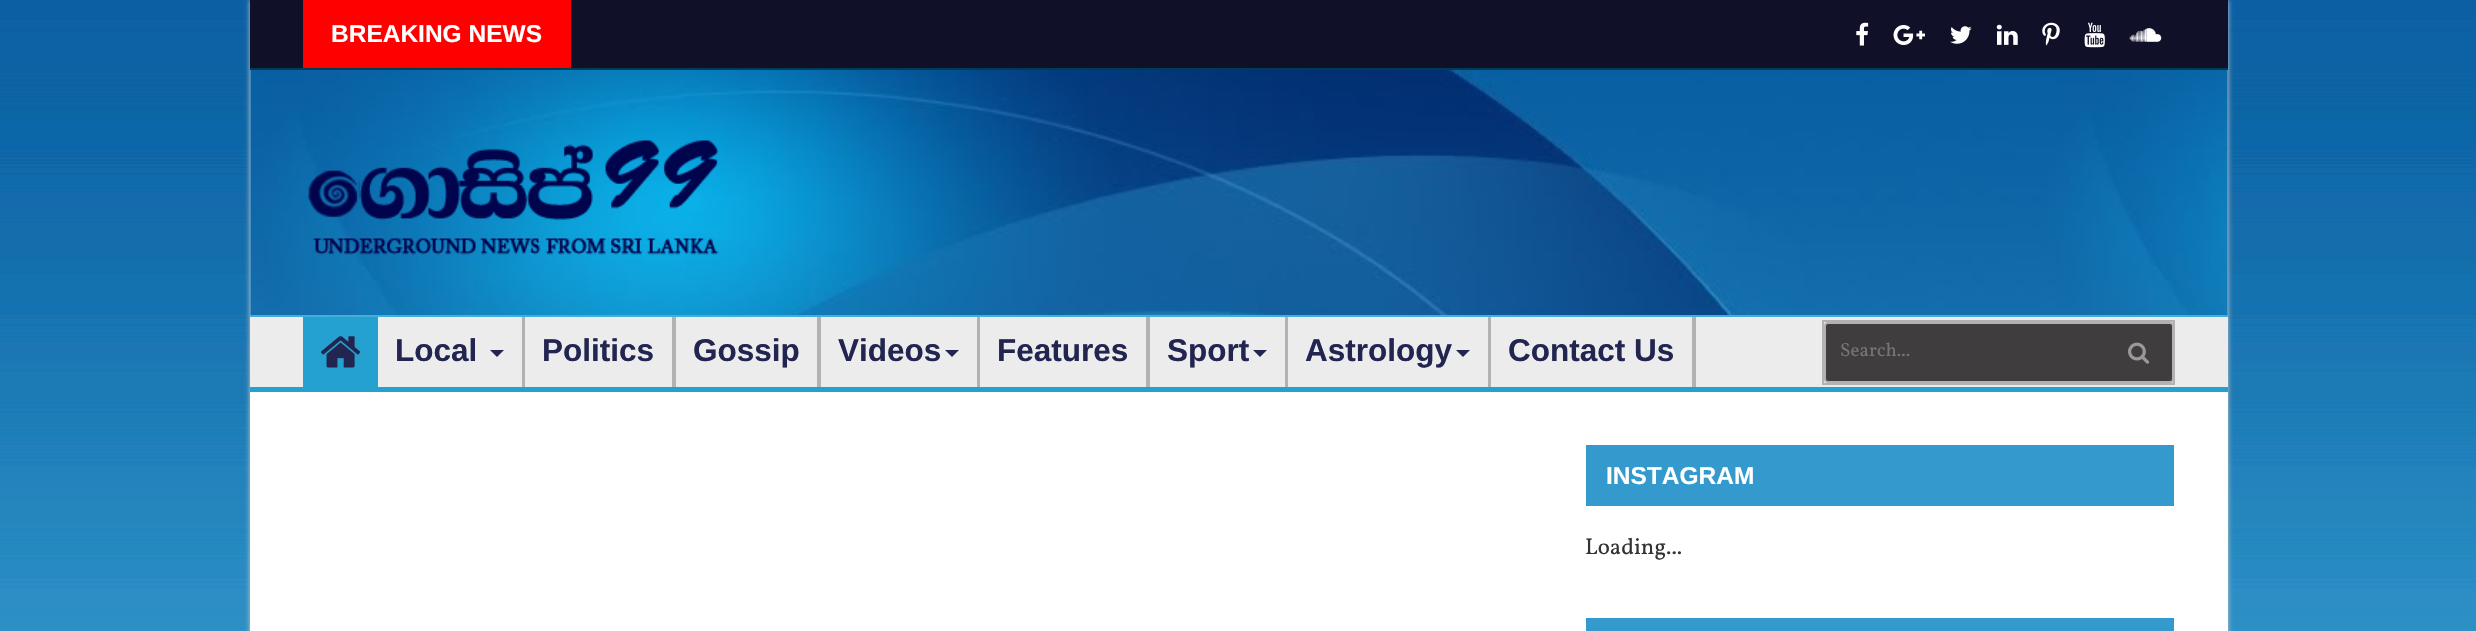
void draw(SkCanvas* canvas) {
    SkPaint paint;
    paint.setAntiAlias(true);
    canvas->clear(0xFFFFFFFF);
    canvas->drawImageRect(SkImages::DeferredFromEncodedData(SkData::MakeFromFileName("img1.png")), SkRect::MakeXYWH(0, 0, 2476, 631), SkSamplingOptions());
    paint.setColor(0xFFCACACA);
    paint.setMaskFilter(SkMaskFilter::MakeBlur(kNormal_SkBlurStyle, 2.5f));
    canvas->drawRect(SkRect::MakeXYWH(250, 0, 1978, 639), paint);
    paint.setMaskFilter(nullptr);
    paint.setColor(0xFFFFFFFF);
    canvas->drawRect(SkRect::MakeXYWH(250, 70, 1978, 561), paint);
    paint.setColor(0xFF101028);
    canvas->drawRect(SkRect::MakeXYWH(250, 0, 1978, 68), paint);
    paint.setColor(0xFFFF0000);
    canvas->drawRect(SkRect::MakeXYWH(303, 0, 268, 68), paint);
    SkFont font1(fontMgr->matchFamilyStyle("Arimo", SkFontStyle::Bold()), 24.5f);
    font1.setSubpixel(true);
    paint.setColor(0xFFFFFFFF);
    canvas->drawString("BREAKING NEWS", 331, 42, font1, paint);
    canvas->drawImageRect(SkImages::DeferredFromEncodedData(SkData::MakeFromFileName("img2.png")), SkRect::MakeXYWH(1856, 22, 13, 24), SkSamplingOptions());
    canvas->drawImageRect(SkImages::DeferredFromEncodedData(SkData::MakeFromFileName("img3.png")), SkRect::MakeXYWH(1893, 25, 32, 20), SkSamplingOptions());
    canvas->drawImageRect(SkImages::DeferredFromEncodedData(SkData::MakeFromFileName("img4.png")), SkRect::MakeXYWH(1950, 26, 22, 18), SkSamplingOptions());
    canvas->drawImageRect(SkImages::DeferredFromEncodedData(SkData::MakeFromFileName("img5.png")), SkRect::MakeXYWH(1996, 24, 22, 21), SkSamplingOptions());
    canvas->drawImageRect(SkImages::DeferredFromEncodedData(SkData::MakeFromFileName("img6.png")), SkRect::MakeXYWH(2042, 22, 18, 24), SkSamplingOptions());
    canvas->drawImageRect(SkImages::DeferredFromEncodedData(SkData::MakeFromFileName("img7.png")), SkRect::MakeXYWH(2084, 22, 21, 26), SkSamplingOptions());
    canvas->drawImageRect(SkImages::DeferredFromEncodedData(SkData::MakeFromFileName("img8.png")), SkRect::MakeXYWH(2129, 28, 33, 14), SkSamplingOptions());
    canvas->drawImageRect(SkImages::DeferredFromEncodedData(SkData::MakeFromFileName("img9.png")), SkRect::MakeXYWH(250, 70, 1978, 245), SkSamplingOptions());
    paint.setColor(0xFF003C54);
    canvas->drawRect(SkRect::MakeXYWH(250, 68, 1978, 2), paint);
    paint.setColor(0xFF42AFDB);
    canvas->drawRect(SkRect::MakeXYWH(250, 315, 1978, 2), paint);
    canvas->drawImageRect(SkImages::DeferredFromEncodedData(SkData::MakeFromFileName("img10.png")), SkRect::MakeXYWH(308, 140, 411, 115), SkSamplingOptions());
    paint.setColor(0xFFECECEC);
    canvas->drawRect(SkRect::MakeXYWH(250, 317, 1978, 70), paint);
    paint.setColor(0xFF24A1D1);
    canvas->drawRect(SkRect::MakeXYWH(250, 387, 1978, 5), paint);
    canvas->drawRect(SkRect::MakeXYWH(303, 317, 75, 70), paint);
    canvas->drawImageRect(SkImages::DeferredFromEncodedData(SkData::MakeFromFileName("img11.png")), SkRect::MakeXYWH(321, 336, 40, 32), SkSamplingOptions());
    paint.setColor(0xFFB3B2B2);
    canvas->drawRect(SkRect::MakeXYWH(522, 317, 3, 70), paint);
    SkFont font2(fontMgr->matchFamilyStyle("Arimo", SkFontStyle::Bold()), 31.5f);
    font2.setSubpixel(true);
    paint.setColor(0xFF212550);
    canvas->drawString("Local", 395, 361, font2, paint);
    canvas->drawPath(SkPathBuilder().moveTo(490, 350).lineTo(504, 350).lineTo(497, 357).close().detach(), paint);
    paint.setColor(0xFFB3B2B2);
    canvas->drawRect(SkRect::MakeXYWH(672, 317, 4, 70), paint);
    paint.setColor(0xFF212550);
    canvas->drawString("Politics", 542, 361, font2, paint);
    paint.setColor(0xFFB3B2B2);
    canvas->drawRect(SkRect::MakeXYWH(817, 317, 4, 70), paint);
    paint.setColor(0xFF212550);
    canvas->drawString("Gossip", 693, 361, font2, paint);
    paint.setColor(0xFFB3B2B2);
    canvas->drawRect(SkRect::MakeXYWH(977, 317, 3, 70), paint);
    paint.setColor(0xFF212550);
    canvas->drawString("Videos", 838, 361, font2, paint);
    canvas->drawPath(SkPathBuilder().moveTo(945, 350).lineTo(959, 350).lineTo(952, 357).close().detach(), paint);
    paint.setColor(0xFFB3B2B2);
    canvas->drawRect(SkRect::MakeXYWH(1146, 317, 4, 70), paint);
    paint.setColor(0xFF212550);
    canvas->drawString("Features", 997, 361, font2, paint);
    paint.setColor(0xFFB3B2B2);
    canvas->drawRect(SkRect::MakeXYWH(1285, 317, 3, 70), paint);
    paint.setColor(0xFF212550);
    canvas->drawString("Sport", 1167, 361, font2, paint);
    canvas->drawPath(SkPathBuilder().moveTo(1253, 350).lineTo(1267, 350).lineTo(1260, 357).close().detach(), paint);
    paint.setColor(0xFFB3B2B2);
    canvas->drawRect(SkRect::MakeXYWH(1488, 317, 3, 70), paint);
    paint.setColor(0xFF212550);
    canvas->drawString("Astrology", 1305, 361, font2, paint);
    canvas->drawPath(SkPathBuilder().moveTo(1456, 350).lineTo(1470, 350).lineTo(1463, 357).close().detach(), paint);
    paint.setColor(0xFFB3B2B2);
    canvas->drawRect(SkRect::MakeXYWH(1692, 317, 4, 70), paint);
    paint.setColor(0xFF212550);
    canvas->drawString("Contact Us", 1508, 361, font2, paint);
    paint.setStyle(SkPaint::kStroke_Style);
    paint.setStrokeWidth(2);
    paint.setColor(0xFFB3B2B2);
    canvas->drawRect(SkRect::MakeXYWH(1823, 321, 351, 63), paint);
    paint.setStyle(SkPaint::kFill_Style);
    paint.setColor(0xFF3F3D3D);
    canvas->drawRoundRect(SkRect::MakeXYWH(1825, 323, 348, 59), 3, 3, paint);
    paint.setStyle(SkPaint::kStroke_Style);
    paint.setColor(0xFFB3B2B2);
    canvas->drawRoundRect(SkRect::MakeXYWH(1825, 323, 348, 59), 3, 3, paint);
    SkFont font3(fontMgr->matchFamilyStyle("Vollkorn", SkFontStyle::Normal()), 19);
    font3.setSubpixel(true);
    paint.setStyle(SkPaint::kFill_Style);
    paint.setColor(0xFF757575);
    canvas->drawString("Search...", 1840, 356, font3, paint);
    canvas->drawImageRect(SkImages::DeferredFromEncodedData(SkData::MakeFromFileName("img12.png")), SkRect::MakeXYWH(2128, 342, 22, 22), SkSamplingOptions());
    paint.setColor(0xFF3499CD);
    canvas->drawRect(SkRect::MakeXYWH(1586, 445, 588, 61), paint);
    paint.setColor(0xFFFFFFFF);
    canvas->drawString("INSTAGRAM", 1606, 484, font1, paint);
    SkFont font4(fontMgr->matchFamilyStyle("Vollkorn", SkFontStyle::Normal()), 22.75f);
    font4.setSubpixel(true);
    paint.setColor(0xFF333333);
    canvas->drawString("Loading...", 1585, 554, font4, paint);
    paint.setColor(0xFF3499CD);
    canvas->drawRect(SkRect::MakeXYWH(1586, 618, 588, 13), paint);
}
